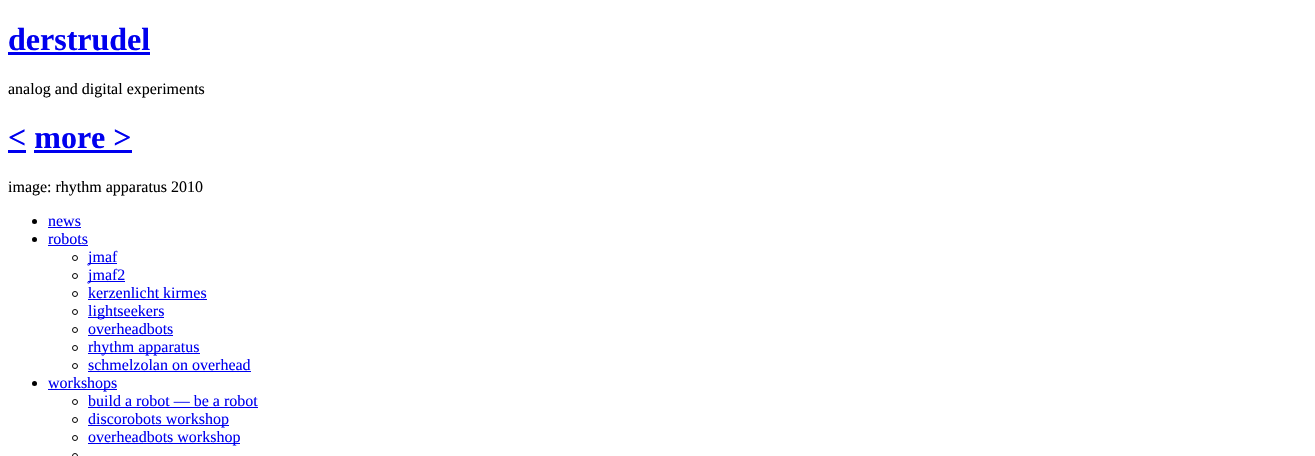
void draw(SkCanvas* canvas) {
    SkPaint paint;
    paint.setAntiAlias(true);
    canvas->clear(0xFFFFFFFF);
    SkFont font1(fontMgr->matchFamilyStyle("Liberation Serif", SkFontStyle::Bold()), 32);
    font1.setSubpixel(true);
    paint.setColor(0xFF0000EE);
    canvas->drawString("derstrudel", 8, 50, font1, paint);
    canvas->drawRect(SkRect::MakeXYWH(8, 52, 142, 3), paint);
    SkFont font2(fontMgr->matchFamilyStyle("Liberation Serif", SkFontStyle::Normal()), 16);
    font2.setSubpixel(true);
    paint.setColor(0xFF000000);
    canvas->drawString("analog and digital experiments", 8, 94, font2, paint);
    paint.setColor(0xFF0000EE);
    canvas->drawString("< more >", 8, 148, font1, paint);
    canvas->drawRect(SkRect::MakeXYWH(8, 150, 18, 3), paint);
    canvas->drawRect(SkRect::MakeXYWH(34, 150, 98, 3), paint);
    paint.setColor(0xFF000000);
    canvas->drawString("image: rhythm apparatus 2010", 8, 192, font2, paint);
    canvas->drawCircle(34.5f, 221.5f, 2.5f, paint);
    paint.setColor(0xFF0000EE);
    canvas->drawString("news", 48, 226, font2, paint);
    canvas->drawRect(SkRect::MakeXYWH(48, 227, 33, 1), paint);
    paint.setColor(0xFF000000);
    canvas->drawCircle(34.5f, 239.5f, 2.5f, paint);
    paint.setColor(0xFF0000EE);
    canvas->drawString("robots", 48, 244, font2, paint);
    canvas->drawRect(SkRect::MakeXYWH(48, 245, 40, 1), paint);
    paint.setStyle(SkPaint::kStroke_Style);
    paint.setStrokeWidth(1);
    paint.setColor(0xFF000000);
    canvas->drawCircle(75, 258, 2.5f, paint);
    paint.setStyle(SkPaint::kFill_Style);
    paint.setColor(0xFF0000EE);
    canvas->drawRect(SkRect::MakeXYWH(88, 263, 29, 1), paint);
    canvas->drawString("jmaf", 88, 262, font2, paint);
    paint.setStyle(SkPaint::kStroke_Style);
    paint.setColor(0xFF000000);
    canvas->drawCircle(75, 276, 2.5f, paint);
    paint.setStyle(SkPaint::kFill_Style);
    paint.setColor(0xFF0000EE);
    canvas->drawRect(SkRect::MakeXYWH(88, 281, 37, 1), paint);
    canvas->drawString("jmaf2", 88, 280, font2, paint);
    paint.setStyle(SkPaint::kStroke_Style);
    paint.setColor(0xFF000000);
    canvas->drawCircle(75, 294, 2.5f, paint);
    paint.setStyle(SkPaint::kFill_Style);
    paint.setColor(0xFF0000EE);
    canvas->drawString("kerzenlicht kirmes", 88, 298, font2, paint);
    canvas->drawRect(SkRect::MakeXYWH(88, 299, 119, 1), paint);
    paint.setStyle(SkPaint::kStroke_Style);
    paint.setColor(0xFF000000);
    canvas->drawCircle(75, 312, 2.5f, paint);
    paint.setStyle(SkPaint::kFill_Style);
    paint.setColor(0xFF0000EE);
    canvas->drawRect(SkRect::MakeXYWH(88, 317, 76, 1), paint);
    canvas->drawString("lightseekers", 88, 316, font2, paint);
    paint.setStyle(SkPaint::kStroke_Style);
    paint.setColor(0xFF000000);
    canvas->drawCircle(75, 330, 2.5f, paint);
    paint.setStyle(SkPaint::kFill_Style);
    paint.setColor(0xFF0000EE);
    canvas->drawString("overheadbots", 88, 334, font2, paint);
    canvas->drawRect(SkRect::MakeXYWH(88, 335, 85, 1), paint);
    paint.setStyle(SkPaint::kStroke_Style);
    paint.setColor(0xFF000000);
    canvas->drawCircle(75, 348, 2.5f, paint);
    paint.setStyle(SkPaint::kFill_Style);
    paint.setColor(0xFF0000EE);
    canvas->drawRect(SkRect::MakeXYWH(88, 353, 112, 1), paint);
    canvas->drawString("rhythm apparatus", 88, 352, font2, paint);
    paint.setStyle(SkPaint::kStroke_Style);
    paint.setColor(0xFF000000);
    canvas->drawCircle(75, 366, 2.5f, paint);
    paint.setStyle(SkPaint::kFill_Style);
    paint.setColor(0xFF0000EE);
    canvas->drawString("schmelzolan on overhead", 88, 370, font2, paint);
    canvas->drawRect(SkRect::MakeXYWH(88, 371, 163, 1), paint);
    paint.setColor(0xFF000000);
    canvas->drawCircle(34.5f, 383.5f, 2.5f, paint);
    paint.setColor(0xFF0000EE);
    canvas->drawRect(SkRect::MakeXYWH(48, 389, 69, 1), paint);
    canvas->drawString("workshops", 48, 388, font2, paint);
    paint.setStyle(SkPaint::kStroke_Style);
    paint.setColor(0xFF000000);
    canvas->drawCircle(75, 402, 2.5f, paint);
    paint.setStyle(SkPaint::kFill_Style);
    paint.setColor(0xFF0000EE);
    canvas->drawString("build a robot — be a robot", 88, 406, font2, paint);
    canvas->drawRect(SkRect::MakeXYWH(88, 407, 170, 1), paint);
    paint.setStyle(SkPaint::kStroke_Style);
    paint.setColor(0xFF000000);
    canvas->drawCircle(75, 420, 2.5f, paint);
    paint.setStyle(SkPaint::kFill_Style);
    paint.setColor(0xFF0000EE);
    canvas->drawRect(SkRect::MakeXYWH(88, 425, 141, 1), paint);
    canvas->drawString("discorobots workshop", 88, 424, font2, paint);
    paint.setStyle(SkPaint::kStroke_Style);
    paint.setColor(0xFF000000);
    canvas->drawCircle(75, 438, 2.5f, paint);
    paint.setStyle(SkPaint::kFill_Style);
    paint.setColor(0xFF0000EE);
    canvas->drawRect(SkRect::MakeXYWH(88, 443, 152, 1), paint);
    canvas->drawString("overheadbots workshop", 88, 442, font2, paint);
    paint.setStyle(SkPaint::kStroke_Style);
    paint.setColor(0xFF000000);
    canvas->drawCircle(75, 456, 2.5f, paint);
}
